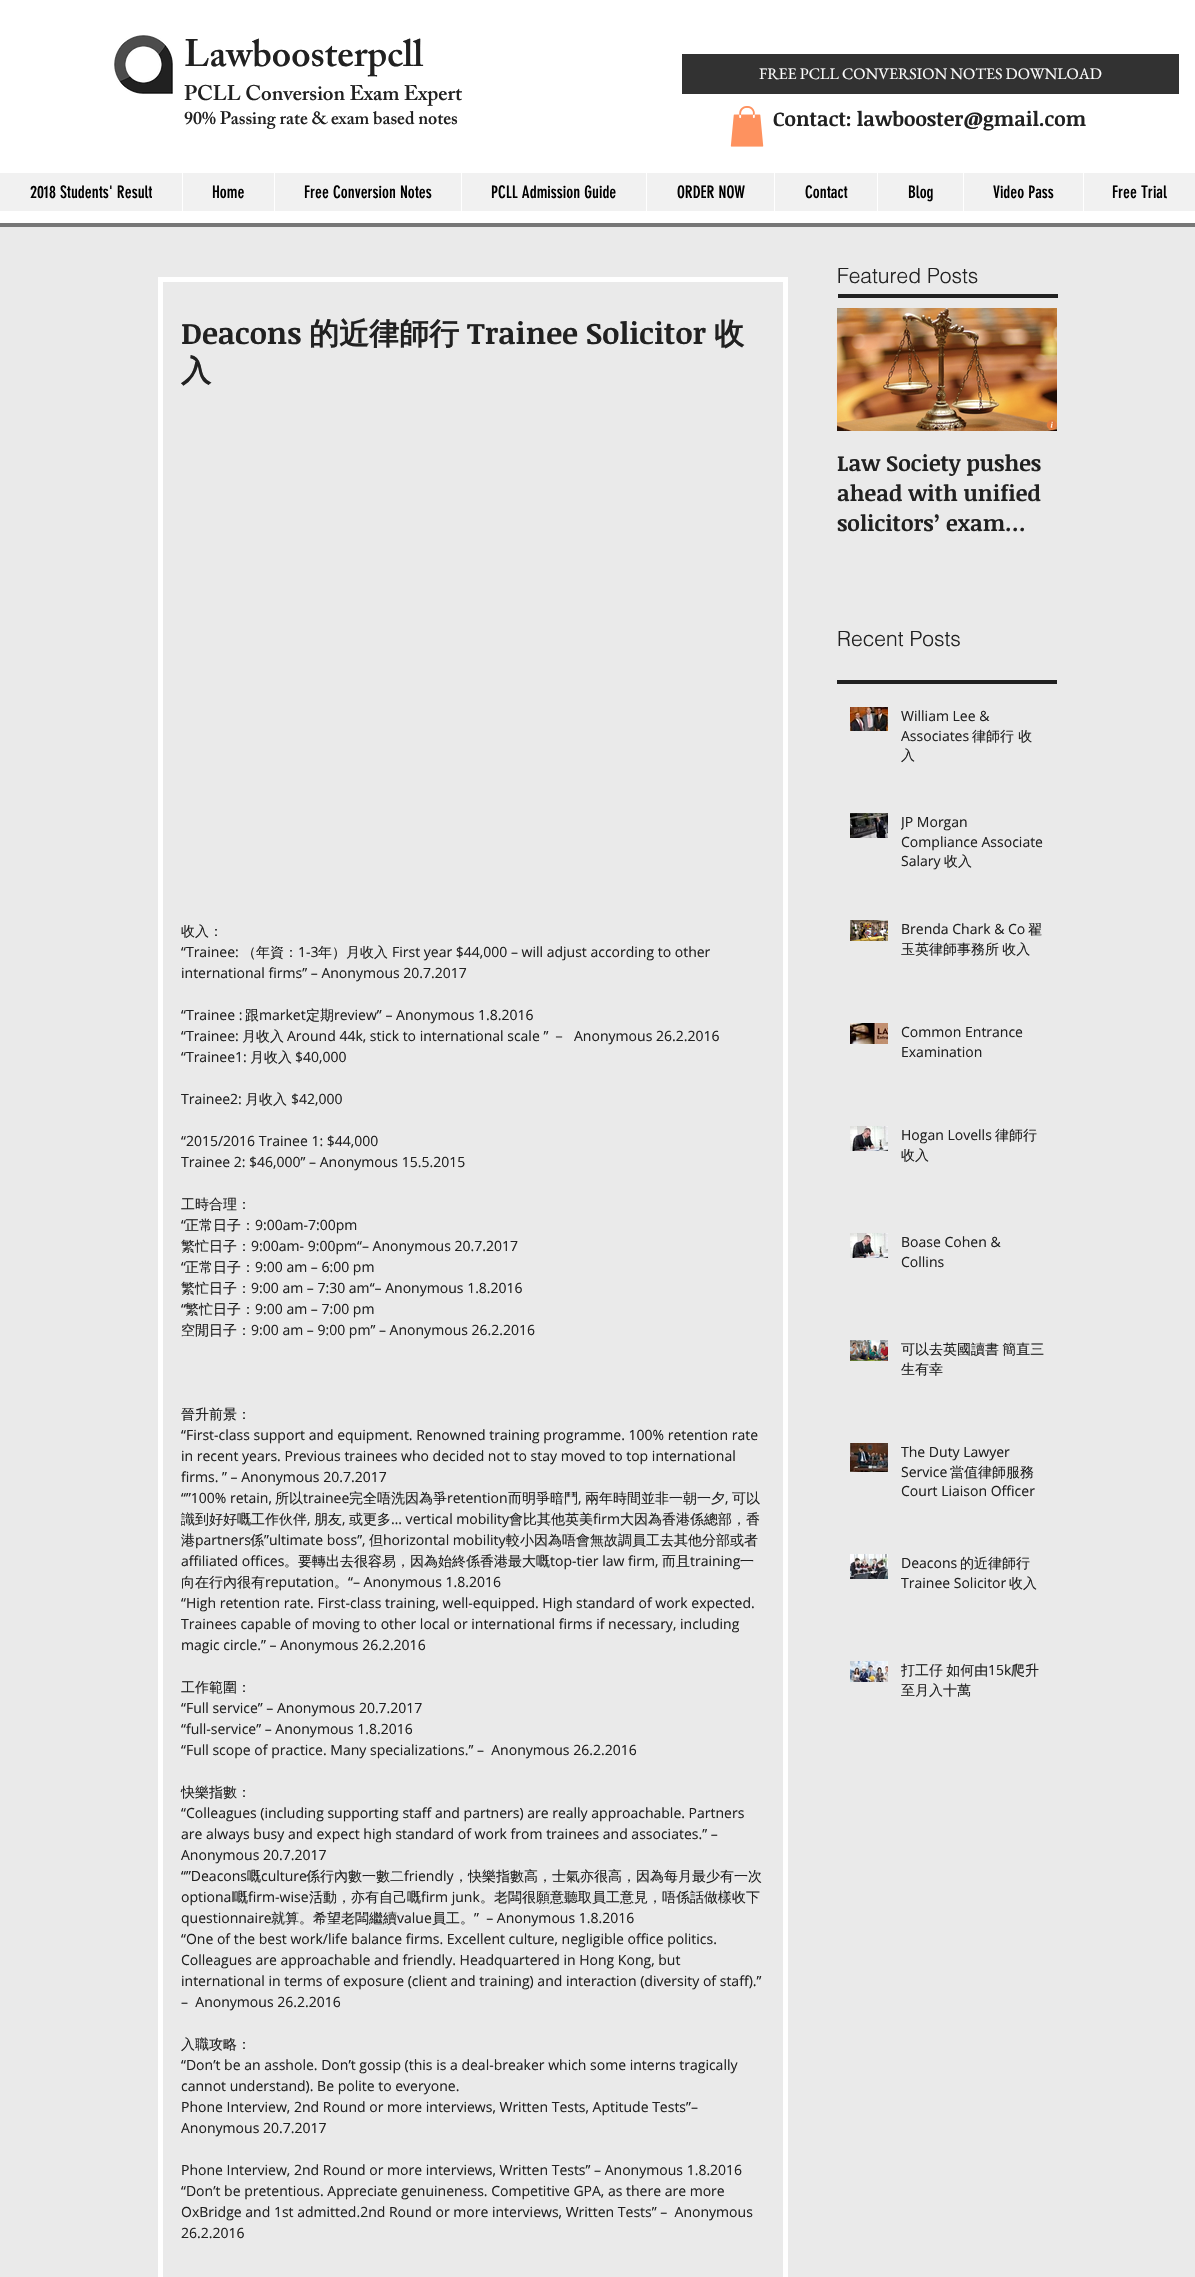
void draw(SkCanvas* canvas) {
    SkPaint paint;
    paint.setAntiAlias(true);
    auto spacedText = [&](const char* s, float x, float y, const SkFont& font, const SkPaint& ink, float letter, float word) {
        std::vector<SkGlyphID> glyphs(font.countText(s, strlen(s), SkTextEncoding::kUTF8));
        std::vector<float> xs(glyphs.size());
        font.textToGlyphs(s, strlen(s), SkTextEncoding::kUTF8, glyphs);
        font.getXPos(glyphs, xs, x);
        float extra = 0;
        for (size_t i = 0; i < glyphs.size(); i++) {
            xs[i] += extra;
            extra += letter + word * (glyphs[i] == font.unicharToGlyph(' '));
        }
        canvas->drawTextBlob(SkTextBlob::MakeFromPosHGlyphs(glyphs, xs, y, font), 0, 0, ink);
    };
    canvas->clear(0xFFEAEAEA);
    paint.setColor(0xFFFFFFFF);
    canvas->drawRect(SkRect::MakeXYWH(0, 0, 1195, 223), paint);
    paint.setColor(0xFF777777);
    canvas->drawRect(SkRect::MakeXYWH(0, 223, 1195, 4), paint);
    canvas->drawImageRect(SkImages::DeferredFromEncodedData(SkData::MakeFromFileName("img1.png")), SkRect::MakeXYWH(114, 35, 59, 59), SkSamplingOptions());
    SkFont font1(fontMgr->matchFamilyStyle("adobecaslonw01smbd", SkFontStyle(600, SkFontStyle::kNormal_Width, SkFontStyle::kUpright_Slant)), 38);
    font1.setSubpixel(true);
    paint.setColor(0xFF212121);
    canvas->drawString("Lawboosterpcll", 184, 66, font1, paint);
    SkFont font2(fontMgr->matchFamilyStyle("adobecaslonw01smbd", SkFontStyle(600, SkFontStyle::kNormal_Width, SkFontStyle::kUpright_Slant)), 21);
    font2.setSubpixel(true);
    canvas->drawString("PCLL Conversion Exam Expert", 184, 100, font2, paint);
    SkFont font3(fontMgr->matchFamilyStyle("adobecaslonw01smbd", SkFontStyle(600, SkFontStyle::kNormal_Width, SkFontStyle::kUpright_Slant)), 18);
    font3.setSubpixel(true);
    canvas->drawString("90% Passing rate & exam based notes", 184, 124, font3, paint);
    paint.setColor(0xFF323232);
    canvas->drawRect(SkRect::MakeXYWH(682, 54, 497, 40), paint);
    SkFont font4(fontMgr->matchFamilyStyle("EB Garamond", SkFontStyle::Normal()), 16);
    font4.setSubpixel(true);
    paint.setColor(0xFFFFFFFF);
    canvas->drawString("FREE PCLL CONVERSION NOTES DOWNLOAD", 759, 79, font4, paint);
    canvas->drawImageRect(SkImages::DeferredFromEncodedData(SkData::MakeFromFileName("img2.png")), SkRect::MakeXYWH(730, 106, 34, 41), SkSamplingOptions());
    SkFont font5(fontMgr->matchFamilyStyle("Noticia Text", SkFontStyle::Bold()), 20);
    font5.setSubpixel(true);
    paint.setColor(0xFF212121);
    canvas->drawString("Contact: lawbooster@gmail.com", 773, 126, font5, paint);
    paint.setColor(0xFFF1F1F1);
    canvas->drawRect(SkRect::MakeXYWH(0, 173, 1195, 38), paint);
    SkFont font6(fontMgr->matchFamilyStyle("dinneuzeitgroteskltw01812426", SkFontStyle::Normal()), 17);
    font6.setSubpixel(true);
    paint.setColor(0xFF000000);
    canvas->drawString("2018 Students' Result", 30, 198, font6, paint);
    paint.setColor(0xFFFFFFFF);
    canvas->drawRect(SkRect::MakeXYWH(182, 173, 1, 38), paint);
    paint.setColor(0xFF000000);
    canvas->drawString("Home", 212, 198, font6, paint);
    paint.setColor(0xFFFFFFFF);
    canvas->drawRect(SkRect::MakeXYWH(274, 173, 1, 38), paint);
    paint.setColor(0xFF000000);
    canvas->drawString("Free Conversion Notes", 304, 198, font6, paint);
    paint.setColor(0xFFFFFFFF);
    canvas->drawRect(SkRect::MakeXYWH(461, 173, 1, 38), paint);
    paint.setColor(0xFF000000);
    canvas->drawString("PCLL Admission Guide", 491, 198, font6, paint);
    paint.setColor(0xFFFFFFFF);
    canvas->drawRect(SkRect::MakeXYWH(646, 173, 1, 38), paint);
    paint.setColor(0xFF000000);
    canvas->drawString("ORDER NOW", 677, 198, font6, paint);
    paint.setColor(0xFFFFFFFF);
    canvas->drawRect(SkRect::MakeXYWH(774, 173, 1, 38), paint);
    paint.setColor(0xFF000000);
    canvas->drawString("Contact", 805, 198, font6, paint);
    paint.setColor(0xFFFFFFFF);
    canvas->drawRect(SkRect::MakeXYWH(877, 173, 1, 38), paint);
    paint.setColor(0xFF000000);
    canvas->drawString("Blog", 908, 198, font6, paint);
    paint.setColor(0xFFFFFFFF);
    canvas->drawRect(SkRect::MakeXYWH(963, 173, 1, 38), paint);
    paint.setColor(0xFF000000);
    canvas->drawString("Video Pass", 993, 198, font6, paint);
    paint.setColor(0xFFFFFFFF);
    canvas->drawRect(SkRect::MakeXYWH(1083, 173, 1, 38), paint);
    paint.setColor(0xFF000000);
    canvas->drawString("Free Trial", 1112, 198, font6, paint);
    SkFont font7(fontMgr->matchFamilyStyle("helvetica", SkFontStyle(300, SkFontStyle::kNormal_Width, SkFontStyle::kUpright_Slant)), 21);
    font7.setSubpixel(true);
    paint.setColor(0xFF212121);
    canvas->drawString("Featured Posts", 837, 283, font7, paint);
    canvas->drawRect(SkRect::MakeXYWH(838, 294, 220, 4), paint);
    paint.setStyle(SkPaint::kStroke_Style);
    paint.setStrokeWidth(5);
    paint.setColor(0xFFFFFFFF);
    canvas->drawRect(SkRect::MakeXYWH(160.5f, 279.5f, 625, 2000), paint);
    SkFont font8(fontMgr->matchFamilyStyle("Noticia Text", SkFontStyle::Bold()), 30);
    font8.setSubpixel(true);
    paint.setStyle(SkPaint::kFill_Style);
    paint.setColor(0xFF212121);
    canvas->drawString("Deacons", 181, 344, font8, paint);
    SkFont font9(fontMgr->matchFamilyStyle("WenQuanYi Zen Hei", SkFontStyle::Bold()), 30);
    font9.setSubpixel(true);
    canvas->drawString("的近律師行", 309, 344, font9, paint);
    canvas->drawString("Trainee Solicitor", 467, 344, font8, paint);
    canvas->drawString("收", 714, 344, font9, paint);
    canvas->drawString("入", 181, 381, font9, paint);
    SkFont font10(fontMgr->matchFamilyStyle("WenQuanYi Zen Hei", SkFontStyle(500, SkFontStyle::kNormal_Width, SkFontStyle::kUpright_Slant)), 14);
    font10.setSubpixel(true);
    canvas->drawString("收入：", 181, 936, font10, paint);
    SkFont font11(fontMgr->matchFamilyStyle("Open Sans", SkFontStyle::Normal()), 14);
    font11.setSubpixel(true);
    canvas->drawString("“Trainee:", 181, 957, font11, paint);
    canvas->drawString("（年資：", 242, 957, font10, paint);
    canvas->drawString("1-3", 298, 957, font11, paint);
    canvas->drawString("年）月收入", 318, 957, font10, paint);
    canvas->drawString("First year $44,000 – will adjust according to other", 392, 957, font11, paint);
    canvas->drawString("international firms” – Anonymous 20.7.2017", 181, 978, font11, paint);
    canvas->drawString("“Trainee :", 181, 1020, font11, paint);
    canvas->drawString("跟", 245, 1020, font10, paint);
    canvas->drawString("market", 259, 1020, font11, paint);
    canvas->drawString("定期", 306, 1020, font10, paint);
    canvas->drawString("review” – Anonymous 1.8.2016", 334, 1020, font11, paint);
    canvas->drawString("“Trainee:", 181, 1041, font11, paint);
    canvas->drawString("月收入", 242, 1041, font10, paint);
    canvas->drawString("Around 44k, stick to international scale ”", 287, 1041, font11, paint);
    canvas->drawString("－", 552, 1041, font10, paint);
    canvas->drawString("Anonymous 26.2.2016", 574, 1041, font11, paint);
    canvas->drawString("“Trainee1:", 181, 1062, font11, paint);
    canvas->drawString("月收入", 250, 1062, font10, paint);
    canvas->drawString("$40,000", 295, 1062, font11, paint);
    canvas->drawString("Trainee2:", 181, 1104, font11, paint);
    canvas->drawString("月收入", 245, 1104, font10, paint);
    canvas->drawString("$42,000", 291, 1104, font11, paint);
    canvas->drawString("“2015/2016 Trainee 1: $44,000", 181, 1146, font11, paint);
    canvas->drawString("Trainee 2: $46,000” – Anonymous 15.5.2015", 181, 1167, font11, paint);
    canvas->drawString("工時合理：", 181, 1209, font10, paint);
    canvas->drawString("“", 181, 1230, font11, paint);
    canvas->drawString("正常日子：", 185, 1230, font10, paint);
    canvas->drawString("9:00am-7:00pm", 255, 1230, font11, paint);
    canvas->drawString("繁忙日子：", 181, 1251, font10, paint);
    canvas->drawString("9:00am- 9:00pm“– Anonymous 20.7.2017", 251, 1251, font11, paint);
    canvas->drawString("“", 181, 1272, font11, paint);
    canvas->drawString("正常日子：", 185, 1272, font10, paint);
    canvas->drawString("9:00 am – 6:00 pm", 255, 1272, font11, paint);
    canvas->drawString("繁忙日子：", 181, 1293, font10, paint);
    canvas->drawString("9:00 am – 7:30 am“– Anonymous 1.8.2016", 251, 1293, font11, paint);
    canvas->drawString("“", 181, 1314, font11, paint);
    canvas->drawString("繁忙日子：", 185, 1314, font10, paint);
    canvas->drawString("9:00 am – 7:00 pm", 255, 1314, font11, paint);
    canvas->drawString("空閒日子：", 181, 1335, font10, paint);
    canvas->drawString("9:00 am – 9:00 pm” – Anonymous 26.2.2016", 251, 1335, font11, paint);
    canvas->drawString("晉升前景：", 181, 1419, font10, paint);
    canvas->drawString("“First-class support and equipment. Renowned training programme. 100% retention rate", 181, 1440, font11, paint);
    canvas->drawString("in recent years. Previous trainees who decided not to stay moved to top international", 181, 1461, font11, paint);
    canvas->drawString("firms. ” – Anonymous 20.7.2017", 181, 1482, font11, paint);
    canvas->drawString("“”100% retain,", 181, 1503, font11, paint);
    canvas->drawString("所以", 275, 1503, font10, paint);
    canvas->drawString("trainee", 303, 1503, font11, paint);
    canvas->drawString("完全唔洗因為爭", 349, 1503, font10, paint);
    canvas->drawString("retention", 447, 1503, font11, paint);
    canvas->drawString("而明爭暗鬥", 508, 1503, font10, paint);
    canvas->drawString(",", 578, 1503, font11, paint);
    canvas->drawString("兩年時間並非一朝一夕", 585, 1503, font10, paint);
    canvas->drawString(",", 725, 1503, font11, paint);
    canvas->drawString("可以", 732, 1503, font10, paint);
    canvas->drawString("識到好好嘅工作伙伴", 181, 1524, font10, paint);
    canvas->drawString(",", 307, 1524, font11, paint);
    canvas->drawString("朋友", 314, 1524, font10, paint);
    canvas->drawString(",", 342, 1524, font11, paint);
    canvas->drawString("或更多", 349, 1524, font10, paint);
    canvas->drawString("… vertical mobility", 391, 1524, font11, paint);
    canvas->drawString("會比其他英美", 509, 1524, font10, paint);
    canvas->drawString("firm", 593, 1524, font11, paint);
    canvas->drawString("大因為香港係總部，香", 620, 1524, font10, paint);
    canvas->drawString("港", 181, 1545, font10, paint);
    canvas->drawString("partners", 195, 1545, font11, paint);
    canvas->drawString("係", 250, 1545, font10, paint);
    canvas->drawString("”ultimate boss”,", 264, 1545, font11, paint);
    canvas->drawString("但", 369, 1545, font10, paint);
    canvas->drawString("horizontal mobility", 383, 1545, font11, paint);
    canvas->drawString("較小因為唔會無故調員工去其他分部或者", 506, 1545, font10, paint);
    canvas->drawString("affiliated offices", 181, 1566, font11, paint);
    canvas->drawString("。要轉出去很容易，因為始終係香港最大嘅", 284, 1566, font10, paint);
    canvas->drawString("top-tier law firm,", 550, 1566, font11, paint);
    canvas->drawString("而且", 662, 1566, font10, paint);
    canvas->drawString("training", 690, 1566, font11, paint);
    canvas->drawString("一", 740, 1566, font10, paint);
    canvas->drawString("向在行內很有", 181, 1587, font10, paint);
    canvas->drawString("reputation", 265, 1587, font11, paint);
    canvas->drawString("。", 334, 1587, font10, paint);
    canvas->drawString("“– Anonymous 1.8.2016", 348, 1587, font11, paint);
    canvas->drawString("“High retention rate. First-class training, well-equipped. High standard of work expected.", 181, 1608, font11, paint);
    canvas->drawString("Trainees capable of moving to other local or international firms if necessary, including", 181, 1629, font11, paint);
    canvas->drawString("magic circle.” – Anonymous 26.2.2016", 181, 1650, font11, paint);
    canvas->drawString("工作範圍：", 181, 1692, font10, paint);
    canvas->drawString("“Full service” – Anonymous 20.7.2017", 181, 1713, font11, paint);
    canvas->drawString("“full-service” – Anonymous 1.8.2016", 181, 1734, font11, paint);
    canvas->drawString("“Full scope of practice. Many specializations.” –  Anonymous 26.2.2016", 181, 1755, font11, paint);
    canvas->drawString("快樂指數：", 181, 1797, font10, paint);
    canvas->drawString("“Colleagues (including supporting staff and partners) are really approachable. Partners", 181, 1818, font11, paint);
    canvas->drawString("are always busy and expect high standard of work from trainees and associates.” –", 181, 1839, font11, paint);
    canvas->drawString("Anonymous 20.7.2017", 181, 1860, font11, paint);
    canvas->drawString("“”Deacons", 181, 1881, font11, paint);
    canvas->drawString("嘅", 247, 1881, font10, paint);
    canvas->drawString("culture", 261, 1881, font11, paint);
    canvas->drawString("係行內數一數二", 306, 1881, font10, paint);
    canvas->drawString("friendly", 404, 1881, font11, paint);
    canvas->drawString("，快樂指數高，士氣亦很高，因為每月最少有一次", 454, 1881, font10, paint);
    canvas->drawString("optional", 181, 1902, font11, paint);
    canvas->drawString("嘅", 234, 1902, font10, paint);
    canvas->drawString("firm-wise", 248, 1902, font11, paint);
    canvas->drawString("活動，亦有自己嘅", 309, 1902, font10, paint);
    canvas->drawString("firm junk", 421, 1902, font11, paint);
    canvas->drawString("。老闆很願意聽取員工意見，唔係話做樣收下", 480, 1902, font10, paint);
    canvas->drawString("questionnaire", 181, 1923, font11, paint);
    canvas->drawString("就算。希望老闆繼續", 271, 1923, font10, paint);
    canvas->drawString("value", 397, 1923, font11, paint);
    canvas->drawString("員工。", 432, 1923, font10, paint);
    canvas->drawString("”  – Anonymous 1.8.2016", 474, 1923, font11, paint);
    canvas->drawString("“One of the best work/life balance firms. Excellent culture, negligible office politics.", 181, 1944, font11, paint);
    canvas->drawString("Colleagues are approachable and friendly. Headquartered in Hong Kong, but", 181, 1965, font11, paint);
    canvas->drawString("international in terms of exposure (client and training) and interaction (diversity of staff).”", 181, 1986, font11, paint);
    canvas->drawString("–  Anonymous 26.2.2016", 181, 2007, font11, paint);
    canvas->drawString("入職攻略：", 181, 2049, font10, paint);
    canvas->drawString("“Don’t be an asshole. Don’t gossip (this is a deal-breaker which some interns tragically", 181, 2070, font11, paint);
    canvas->drawString("cannot understand). Be polite to everyone.", 181, 2091, font11, paint);
    canvas->drawString("Phone Interview, 2nd Round or more interviews, Written Tests, Aptitude Tests”–", 181, 2112, font11, paint);
    canvas->drawString("Anonymous 20.7.2017", 181, 2133, font11, paint);
    canvas->drawString("Phone Interview, 2nd Round or more interviews, Written Tests” – Anonymous 1.8.2016", 181, 2175, font11, paint);
    canvas->drawString("“Don’t be pretentious. Appreciate genuineness. Competitive GPA, as there are more", 181, 2196, font11, paint);
    canvas->drawString("OxBridge and 1st admitted.2nd Round or more interviews, Written Tests” –  Anonymous", 181, 2217, font11, paint);
    canvas->drawString("26.2.2016", 181, 2238, font11, paint);
    canvas->drawImageRect(SkImages::DeferredFromEncodedData(SkData::MakeFromFileName("img3.png")), SkRect::MakeXYWH(837, 308, 220, 123), SkSamplingOptions());
    SkFont font12(fontMgr->matchFamilyStyle("Noticia Text", SkFontStyle::Bold()), 22);
    font12.setSubpixel(true);
    canvas->drawString("Law Society pushes", 837, 471, font12, paint);
    canvas->drawString("ahead with unified", 837, 501, font12, paint);
    canvas->drawString("solicitors’ exam…", 837, 531, font12, paint);
    canvas->drawString("Recent Posts", 837, 646, font7, paint);
    canvas->drawRect(SkRect::MakeXYWH(837, 680, 220, 4), paint);
    canvas->drawImageRect(SkImages::DeferredFromEncodedData(SkData::MakeFromFileName("img4.png")), SkRect::MakeXYWH(850, 707, 38, 24), SkSamplingOptions());
    canvas->drawString("William Lee &", 901, 721, font11, paint);
    canvas->drawString("Associates", 901, 741, font11, paint);
    canvas->drawString("律師行 收", 972, 741, font10, paint);
    canvas->drawString("入", 901, 760, font10, paint);
    canvas->drawImageRect(SkImages::DeferredFromEncodedData(SkData::MakeFromFileName("img5.png")), SkRect::MakeXYWH(850, 813, 38, 25), SkSamplingOptions());
    canvas->save();
    canvas->clipRect(SkRect::MakeXYWH(901, 812, 144, 59));
    canvas->drawString("JP Morgan", 901, 827, font11, paint);
    canvas->restore();
    canvas->drawString("Compliance Associate", 901, 847, font11, paint);
    canvas->drawString("Salary", 901, 866, font11, paint);
    canvas->drawString("收入", 944, 866, font10, paint);
    canvas->drawImageRect(SkImages::DeferredFromEncodedData(SkData::MakeFromFileName("img6.png")), SkRect::MakeXYWH(850, 920, 38, 21), SkSamplingOptions());
    canvas->drawString("Brenda Chark & Co", 901, 934, font11, paint);
    canvas->drawString("翟", 1028, 934, font10, paint);
    spacedText("玉英律師事務所 收入", 901, 954, font10, paint, 0, -1);
    canvas->drawImageRect(SkImages::DeferredFromEncodedData(SkData::MakeFromFileName("img7.png")), SkRect::MakeXYWH(850, 1023, 38, 21), SkSamplingOptions());
    canvas->drawString("Common Entrance", 901, 1037, font11, paint);
    canvas->drawString("Examination", 901, 1057, font11, paint);
    canvas->drawImageRect(SkImages::DeferredFromEncodedData(SkData::MakeFromFileName("img8.png")), SkRect::MakeXYWH(850, 1126, 38, 25), SkSamplingOptions());
    canvas->drawString("Hogan Lovells", 901, 1140, font11, paint);
    canvas->drawString("律師行", 995, 1140, font10, paint);
    canvas->drawString("收入", 901, 1160, font10, paint);
    canvas->drawImageRect(SkImages::DeferredFromEncodedData(SkData::MakeFromFileName("img8.png")), SkRect::MakeXYWH(850, 1233, 38, 25), SkSamplingOptions());
    canvas->drawString("Boase Cohen &", 901, 1247, font11, paint);
    canvas->drawString("Collins", 901, 1267, font11, paint);
    canvas->drawImageRect(SkImages::DeferredFromEncodedData(SkData::MakeFromFileName("img9.png")), SkRect::MakeXYWH(850, 1340, 38, 21), SkSamplingOptions());
    spacedText("可以去英國讀書 簡直三", 901, 1354, font10, paint, 0, -1);
    canvas->drawString("生有幸", 901, 1374, font10, paint);
    canvas->drawImageRect(SkImages::DeferredFromEncodedData(SkData::MakeFromFileName("img10.png")), SkRect::MakeXYWH(850, 1443, 38, 29), SkSamplingOptions());
    canvas->drawString("The Duty Lawyer", 901, 1457, font11, paint);
    canvas->drawString("Service", 901, 1477, font11, paint);
    canvas->drawString("當值律師服務", 950, 1477, font10, paint);
    canvas->drawString("Court Liaison Officer", 901, 1496, font11, paint);
    canvas->drawImageRect(SkImages::DeferredFromEncodedData(SkData::MakeFromFileName("img11.png")), SkRect::MakeXYWH(850, 1554, 38, 25), SkSamplingOptions());
    canvas->drawString("Deacons", 901, 1568, font11, paint);
    canvas->drawString("的近律師行", 960, 1568, font10, paint);
    canvas->drawString("Trainee Solicitor", 901, 1588, font11, paint);
    canvas->drawString("收入", 1009, 1588, font10, paint);
    canvas->drawImageRect(SkImages::DeferredFromEncodedData(SkData::MakeFromFileName("img12.png")), SkRect::MakeXYWH(850, 1661, 38, 21), SkSamplingOptions());
    canvas->save();
    canvas->clipRect(SkRect::MakeXYWH(901, 1660, 144, 39));
    spacedText("打工仔 如何由", 901, 1675, font10, paint, 0, -1);
    canvas->restore();
    canvas->drawString("15k", 988, 1675, font11, paint);
    canvas->drawString("爬升", 1011, 1675, font10, paint);
    canvas->drawString("至月入十萬", 901, 1695, font10, paint);
}
